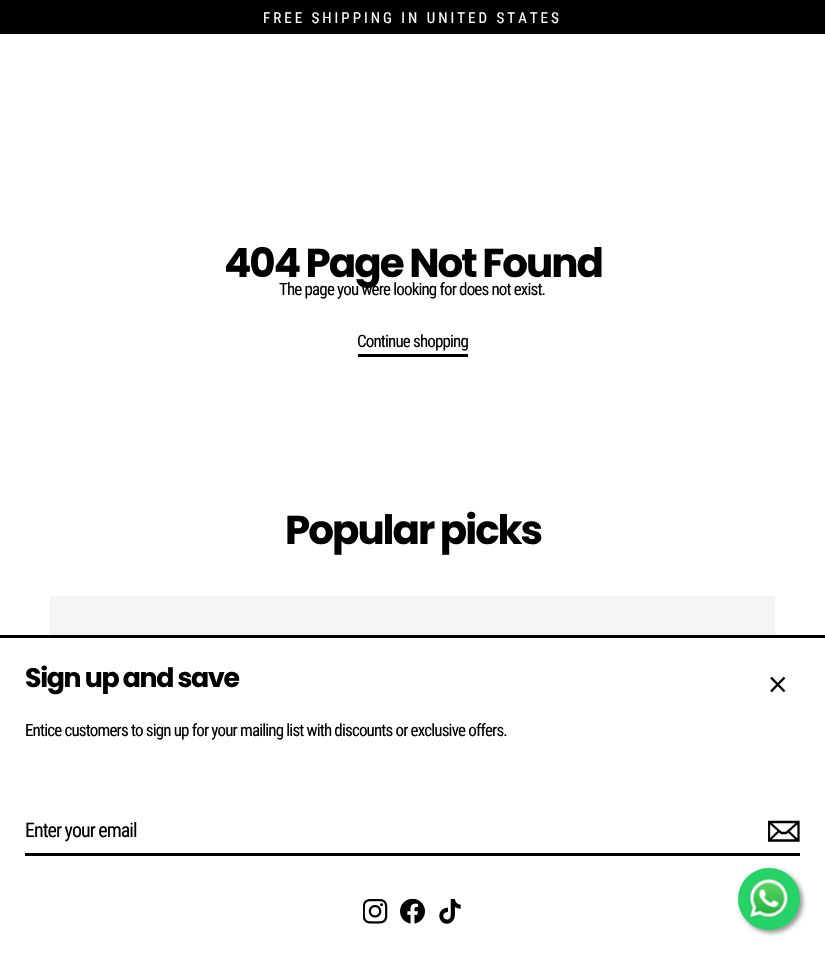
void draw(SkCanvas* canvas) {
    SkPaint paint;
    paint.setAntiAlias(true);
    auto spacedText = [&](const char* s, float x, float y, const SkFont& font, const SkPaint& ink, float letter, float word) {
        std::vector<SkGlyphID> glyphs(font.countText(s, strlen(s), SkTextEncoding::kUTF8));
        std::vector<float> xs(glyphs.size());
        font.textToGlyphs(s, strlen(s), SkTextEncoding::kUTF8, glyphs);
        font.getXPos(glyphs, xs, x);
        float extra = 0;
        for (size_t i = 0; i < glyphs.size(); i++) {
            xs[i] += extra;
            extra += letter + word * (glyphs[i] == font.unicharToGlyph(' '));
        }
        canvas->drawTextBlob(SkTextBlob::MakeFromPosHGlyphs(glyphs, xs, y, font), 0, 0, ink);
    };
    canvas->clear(0xFFFFFFFF);
    paint.setColor(0xFF000000);
    canvas->drawRect(SkRect::MakeXYWH(0, 0, 825, 34), paint);
    SkFont font1(fontMgr->matchFamilyStyle("Roboto Condensed", SkFontStyle::Normal()), 15);
    font1.setSubpixel(true);
    paint.setColor(0xFFFFFFFF);
    spacedText("FREE SHIPPING IN UNITED STATES", 263, 23, font1, paint, 3, 0);
    SkFont font2(fontMgr->matchFamilyStyle("Poppins", SkFontStyle::Bold()), 40.4f);
    font2.setSubpixel(true);
    paint.setColor(0xFF000000);
    spacedText("404 Page Not Found", 224, 277, font2, paint, -2, 0);
    SkFont font3(fontMgr->matchFamilyStyle("Roboto Condensed", SkFontStyle::Normal()), 17);
    font3.setSubpixel(true);
    spacedText("The page you were looking for does not exist.", 279, 295, font3, paint, -0.85f, 0);
    spacedText("Continue shopping", 357, 347, font3, paint, -0.85f, 0);
    canvas->drawRect(SkRect::MakeXYWH(358, 354, 110, 3), paint);
    spacedText("Popular picks", 285, 544, font2, paint, -2, 0);
    paint.setColor(0xFFF4F4F4);
    canvas->drawRect(SkRect::MakeXYWH(50, 596, 725, 39), paint);
    paint.setColor(0xFF000000);
    canvas->drawRect(SkRect::MakeXYWH(0, 635, 825, 3), paint);
    SkFont font4(fontMgr->matchFamilyStyle("Poppins", SkFontStyle::Bold()), 26.75f);
    font4.setSubpixel(true);
    spacedText("Sign up and save", 25, 687, font4, paint, -1.3f, 0);
    spacedText("Entice customers to sign up for your mailing list with discounts or exclusive offers.", 25, 736, font3, paint, -0.85f, 0);
    canvas->drawRect(SkRect::MakeXYWH(25, 853, 775, 3), paint);
    SkFont font5(fontMgr->matchFamilyStyle("Roboto Condensed", SkFontStyle::Normal()), 20);
    font5.setSubpixel(true);
    spacedText("Enter your email", 25, 837, font5, paint, -1, 0);
    canvas->save();
    canvas->clipRect(SkRect::MakeXYWH(768, 816, 32, 30));
    paint.setStyle(SkPaint::kStroke_Style);
    paint.setStrokeWidth(2.3f);
    canvas->drawPath(SkPathBuilder().moveTo(798.5f, 840.5f).lineTo(769, 840.5f).lineTo(769, 822).lineTo(798.5f, 822).close().moveTo(769, 822).lineTo(781.5f, 833).lineTo(786, 833).lineTo(798.5f, 822).moveTo(779, 831).lineTo(769.5f, 840).moveTo(798, 840.5f).lineTo(788, 831).detach(), paint);
    canvas->restore();
    canvas->drawImageRect(SkImages::DeferredFromEncodedData(SkData::MakeFromFileName("img1.png")), SkRect::MakeXYWH(363, 899, 25, 25), SkSamplingOptions());
    canvas->drawImageRect(SkImages::DeferredFromEncodedData(SkData::MakeFromFileName("img2.png")), SkRect::MakeXYWH(400, 899, 25, 25), SkSamplingOptions());
    canvas->drawImageRect(SkImages::DeferredFromEncodedData(SkData::MakeFromFileName("img3.png")), SkRect::MakeXYWH(439, 899, 22, 25), SkSamplingOptions());
    paint.setStrokeWidth(2.5f);
    canvas->drawPath(SkPathBuilder().moveTo(771, 677.5f).lineTo(784.5f, 691.5f).moveTo(784.5f, 677.5f).lineTo(771, 691.5f).detach(), paint);
    paint.setStyle(SkPaint::kFill_Style);
    paint.setColor(0xFF999999);
    paint.setMaskFilter(SkMaskFilter::MakeBlur(kNormal_SkBlurStyle, 2));
    canvas->drawRoundRect(SkRect::MakeXYWH(740, 870, 63, 63), 31.5f, 31.5f, paint);
    paint.setMaskFilter(nullptr);
    paint.setColor(0xFF25D366);
    canvas->drawCircle(769, 899, 31, paint);
    canvas->drawImageRect(SkImages::DeferredFromEncodedData(SkData::MakeFromFileName("img4.png")), SkRect::MakeXYWH(749, 878, 40, 40), SkSamplingOptions());
}
